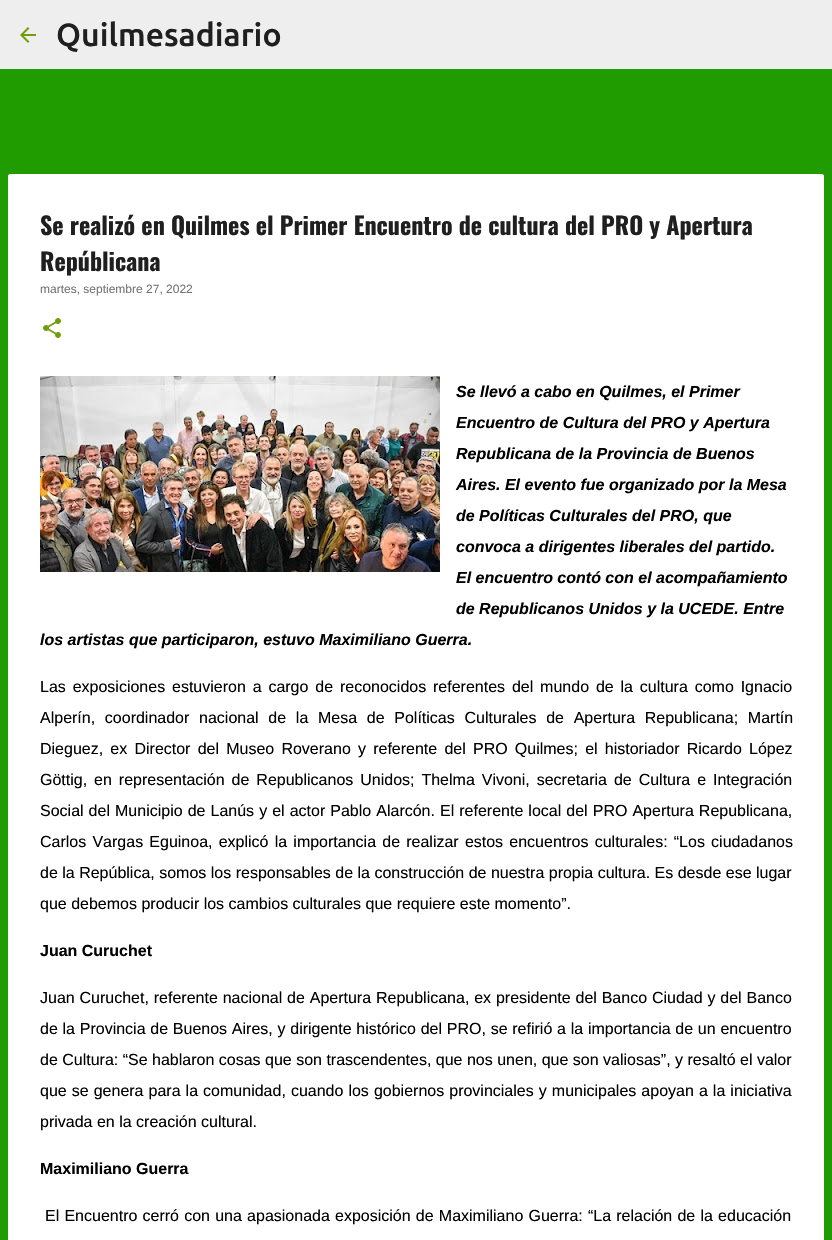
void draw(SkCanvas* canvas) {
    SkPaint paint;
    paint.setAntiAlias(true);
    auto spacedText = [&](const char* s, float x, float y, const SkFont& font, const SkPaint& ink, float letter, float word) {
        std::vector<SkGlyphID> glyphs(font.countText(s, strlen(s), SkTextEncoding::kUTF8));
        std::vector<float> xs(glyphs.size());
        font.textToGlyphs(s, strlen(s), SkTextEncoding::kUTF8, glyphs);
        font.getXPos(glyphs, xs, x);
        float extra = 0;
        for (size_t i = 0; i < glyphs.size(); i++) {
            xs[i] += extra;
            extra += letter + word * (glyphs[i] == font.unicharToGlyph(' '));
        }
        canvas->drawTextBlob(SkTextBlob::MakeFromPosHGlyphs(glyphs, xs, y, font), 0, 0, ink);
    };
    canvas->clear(0xFF219C00);
    paint.setColor(0xFFEEEEEE);
    canvas->drawRect(SkRect::MakeXYWH(0, 0, 832, 69), paint);
    canvas->drawImageRect(SkImages::DeferredFromEncodedData(SkData::MakeFromFileName("img1.png")), SkRect::MakeXYWH(20, 27, 16, 16), SkSamplingOptions());
    SkFont font1(fontMgr->matchFamilyStyle("Ubuntu", SkFontStyle(500, SkFontStyle::kNormal_Width, SkFontStyle::kUpright_Slant)), 32);
    font1.setSubpixel(true);
    paint.setColor(0xFF1F1F1F);
    canvas->drawString("Quilmesadiario", 56, 46, font1, paint);
    paint.setColor(0xFFFFFFFF);
    canvas->drawPath(SkPathBuilder().moveTo(10, 174).lineTo(822, 174).cubicTo(823, 174, 824, 175, 824, 176).lineTo(824, 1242).lineTo(8, 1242).lineTo(8, 176).cubicTo(8, 175, 9, 174, 10, 174).close().detach(), paint);
    SkFont font2(fontMgr->matchFamilyStyle("Oswald", SkFontStyle::Bold()), 24);
    font2.setSubpixel(true);
    paint.setColor(0xFF1F1F1F);
    canvas->drawString("Se realizó en Quilmes el Primer Encuentro de cultura del PRO y Apertura", 40, 235, font2, paint);
    canvas->drawString("Repúblicana", 40, 271, font2, paint);
    SkFont font3(fontMgr->matchFamilyStyle("Liberation Sans", SkFontStyle::Normal()), 12);
    font3.setSubpixel(true);
    paint.setColor(0xFF747474);
    canvas->drawString("martes, septiembre 27, 2022", 40, 293, font3, paint);
    canvas->drawImageRect(SkImages::DeferredFromEncodedData(SkData::MakeFromFileName("img2.png")), SkRect::MakeXYWH(43, 318, 18, 20), SkSamplingOptions());
    canvas->drawImageRect(SkImages::DeferredFromEncodedData(SkData::MakeFromFileName("img3.png")), SkRect::MakeXYWH(40, 376, 400, 196), SkSamplingOptions());
    SkFont font4(fontMgr->matchFamilyStyle("Liberation Sans", SkFontStyle::BoldItalic()), 16);
    font4.setSubpixel(true);
    paint.setColor(0xFF000000);
    canvas->drawString("Se llevó a cabo en Quilmes, el Primer", 456, 397, font4, paint);
    canvas->drawString("Encuentro de Cultura del PRO y Apertura", 456, 428, font4, paint);
    canvas->drawString("Republicana de la Provincia de Buenos", 456, 459, font4, paint);
    canvas->drawString("Aires. El evento fue organizado por la Mesa", 456, 490, font4, paint);
    canvas->drawString("de Políticas Culturales del PRO, que", 456, 521, font4, paint);
    canvas->drawString("convoca a dirigentes liberales del partido.", 456, 552, font4, paint);
    canvas->drawString("El encuentro contó con el acompañamiento", 456, 583, font4, paint);
    canvas->drawString("de Republicanos Unidos y la UCEDE. Entre", 456, 614, font4, paint);
    canvas->drawString("los artistas que participaron, estuvo Maximiliano Guerra.", 40, 645, font4, paint);
    SkFont font5(fontMgr->matchFamilyStyle("Liberation Sans", SkFontStyle::Normal()), 16);
    font5.setSubpixel(true);
    spacedText("Las exposiciones estuvieron a cargo de reconocidos referentes del mundo de la cultura como Ignacio", 40, 692, font5, paint, 0, 2.4f);
    spacedText("Alperín, coordinador nacional de la Mesa de Políticas Culturales de Apertura Republicana; Martín", 40, 723, font5, paint, 0, 5.25f);
    spacedText("Dieguez, ex Director del Museo Roverano y referente del PRO Quilmes; el historiador Ricardo López", 40, 754, font5, paint, 0, 2.75f);
    spacedText("Göttig, en representación de Republicanos Unidos; Thelma Vivoni, secretaria de Cultura e Integración", 40, 785, font5, paint, 0, 2.5f);
    spacedText("Social del Municipio de Lanús y el actor Pablo Alarcón. El referente local del PRO Apertura Republicana,", 40, 816, font5, paint, 0, 0.6f);
    spacedText("Carlos Vargas Eguinoa, explicó la importancia de realizar estos encuentros culturales: “Los ciudadanos", 40, 847, font5, paint, 0, 1.75f);
    canvas->drawString("de la República, somos los responsables de la construcción de nuestra propia cultura. Es desde ese lugar", 40, 878, font5, paint);
    canvas->drawString("que debemos producir los cambios culturales que requiere este momento”.", 40, 909, font5, paint);
    SkFont font6(fontMgr->matchFamilyStyle("Liberation Sans", SkFontStyle::Bold()), 16);
    font6.setSubpixel(true);
    canvas->drawString("Juan Curuchet", 40, 956, font6, paint);
    spacedText("Juan Curuchet, referente nacional de Apertura Republicana, ex presidente del Banco Ciudad y del Banco", 40, 1003, font5, paint, 0, 0.4f);
    spacedText("de la Provincia de Buenos Aires, y dirigente histórico del PRO, se refirió a la importancia de un encuentro", 40, 1034, font5, paint, 0, 0.3f);
    canvas->drawString("de Cultura: “Se hablaron cosas que son trascendentes, que nos unen, que son valiosas”, y resaltó el valor", 40, 1065, font5, paint);
    spacedText("que se genera para la comunidad, cuando los gobiernos provinciales y municipales apoyan a la iniciativa", 40, 1096, font5, paint, 0, 0.6f);
    canvas->drawString("privada en la creación cultural.", 40, 1127, font5, paint);
    canvas->drawString("Maximiliano Guerra", 40, 1174, font6, paint);
    spacedText("El Encuentro cerró con una apasionada exposición de Maximiliano Guerra: “La relación de la educación", 45, 1221, font5, paint, 0, 0.75f);
}
